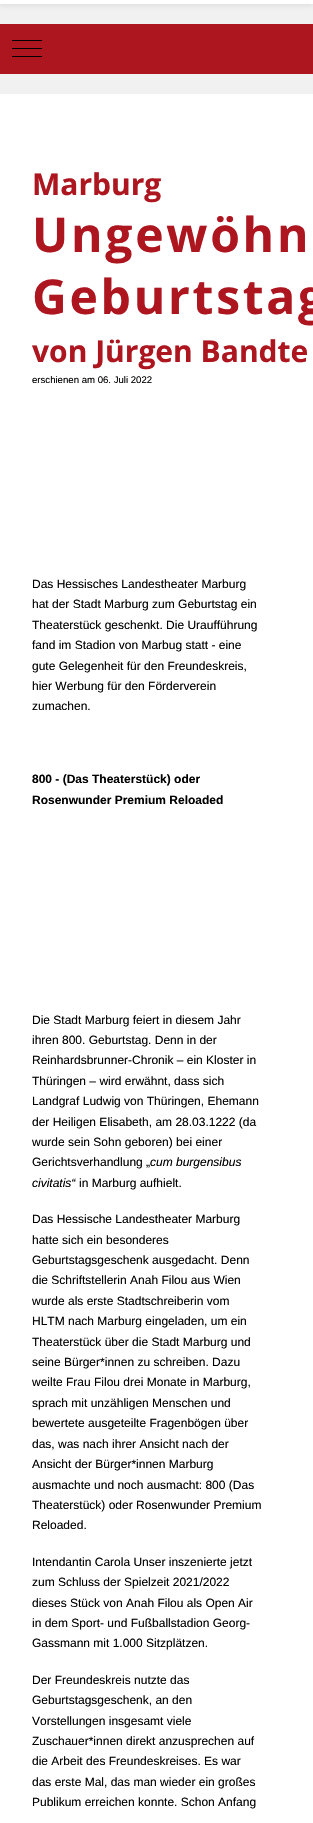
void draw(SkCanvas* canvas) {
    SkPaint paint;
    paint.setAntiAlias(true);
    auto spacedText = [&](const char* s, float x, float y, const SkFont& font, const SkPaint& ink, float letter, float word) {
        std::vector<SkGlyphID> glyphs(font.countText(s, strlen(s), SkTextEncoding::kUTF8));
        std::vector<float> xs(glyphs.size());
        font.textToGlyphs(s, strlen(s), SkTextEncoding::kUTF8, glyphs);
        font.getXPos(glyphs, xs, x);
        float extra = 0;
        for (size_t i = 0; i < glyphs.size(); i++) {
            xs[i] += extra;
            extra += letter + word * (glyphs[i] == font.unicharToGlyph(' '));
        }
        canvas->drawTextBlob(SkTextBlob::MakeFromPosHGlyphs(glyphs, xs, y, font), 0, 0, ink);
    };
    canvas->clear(0xFFF1F1F1);
    paint.setColor(0x12000000);
    paint.setMaskFilter(SkMaskFilter::MakeBlur(kNormal_SkBlurStyle, 2));
    canvas->drawRect(SkRect::MakeXYWH(0, -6, 313, 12), paint);
    paint.setMaskFilter(nullptr);
    paint.setColor(0xFFFFFFFF);
    canvas->drawRect(SkRect::MakeXYWH(0, 0, 313, 4), paint);
    paint.setColor(0xFFAD151F);
    canvas->drawRect(SkRect::MakeXYWH(0, 24, 313, 50), paint);
    paint.setColor(0xFF000000);
    canvas->drawRect(SkRect::MakeXYWH(12, 48, 30, 1), paint);
    canvas->drawRect(SkRect::MakeXYWH(12, 40, 30, 1), paint);
    canvas->drawRect(SkRect::MakeXYWH(12, 56, 30, 1), paint);
    paint.setColor(0xFFFFFFFF);
    canvas->drawRect(SkRect::MakeXYWH(0, 94, 313, 1729), paint);
    SkFont font1(fontMgr->matchFamilyStyle("Open Sans", SkFontStyle::Bold()), 30);
    font1.setSubpixel(true);
    paint.setColor(0xFFAD151F);
    canvas->drawString("Marburg", 32, 195, font1, paint);
    SkFont font2(fontMgr->matchFamilyStyle("Open Sans", SkFontStyle::Bold()), 48);
    font2.setSubpixel(true);
    spacedText("Ungewöhn", 32, 252, font2, paint, 2.75f, 0);
    spacedText("Geburtstag", 32, 314, font2, paint, 2.75f, 0);
    canvas->drawString("von Jürgen Bandte", 32, 362, font1, paint);
    SkFont font3(fontMgr->matchFamilyStyle("Liberation Sans", SkFontStyle::Normal()), 9.6f);
    font3.setSubpixel(true);
    paint.setColor(0xFF000000);
    canvas->drawString("erschienen am 06. Juli 2022", 32, 383, font3, paint);
    SkFont font4(fontMgr->matchFamilyStyle("Liberation Sans", SkFontStyle::Normal()), 12);
    font4.setSubpixel(true);
    canvas->drawString("Das Hessisches Landestheater Marburg", 32, 588, font4, paint);
    canvas->drawString("hat der Stadt Marburg zum Geburtstag ein", 32, 608, font4, paint);
    canvas->drawString("Theaterstück geschenkt. Die Uraufführung", 32, 629, font4, paint);
    canvas->drawString("fand im Stadion von Marbug statt - eine", 32, 649, font4, paint);
    canvas->drawString("gute Gelegenheit für den Freundeskreis,", 32, 670, font4, paint);
    canvas->drawString("hier Werbung für den Förderverein", 32, 690, font4, paint);
    canvas->drawString("zumachen.", 32, 710, font4, paint);
    SkFont font5(fontMgr->matchFamilyStyle("Liberation Sans", SkFontStyle::Bold()), 12);
    font5.setSubpixel(true);
    canvas->drawString("800 - (Das Theaterstück) oder", 32, 783, font5, paint);
    canvas->drawString("Rosenwunder Premium Reloaded", 32, 804, font5, paint);
    canvas->drawString("Die Stadt Marburg feiert in diesem Jahr", 32, 1024, font4, paint);
    canvas->drawString("ihren 800. Geburtstag. Denn in der", 32, 1044, font4, paint);
    canvas->drawString("Reinhardsbrunner-Chronik – ein Kloster in", 32, 1064, font4, paint);
    canvas->drawString("Thüringen – wird erwähnt, dass sich", 32, 1085, font4, paint);
    canvas->drawString("Landgraf Ludwig von Thüringen, Ehemann", 32, 1105, font4, paint);
    canvas->drawString("der Heiligen Elisabeth, am 28.03.1222 (da", 32, 1126, font4, paint);
    canvas->drawString("wurde sein Sohn geboren) bei einer", 32, 1146, font4, paint);
    canvas->drawString("Gerichtsverhandlung „", 32, 1166, font4, paint);
    SkFont font6(fontMgr->matchFamilyStyle("Liberation Sans", SkFontStyle::Italic()), 12);
    font6.setSubpixel(true);
    canvas->drawString("cum burgensibus", 150, 1166, font6, paint);
    canvas->drawString("civitatis“", 32, 1187, font6, paint);
    canvas->drawString("in Marburg aufhielt.", 79, 1187, font4, paint);
    canvas->drawString("Das Hessische Landestheater Marburg", 32, 1223, font4, paint);
    canvas->drawString("hatte sich ein besonderes", 32, 1244, font4, paint);
    canvas->drawString("Geburtstagsgeschenk ausgedacht. Denn", 32, 1264, font4, paint);
    canvas->drawString("die Schriftstellerin Anah Filou aus Wien", 32, 1284, font4, paint);
    canvas->drawString("wurde als erste Stadtschreiberin vom", 32, 1305, font4, paint);
    canvas->drawString("HLTM nach Marburg eingeladen, um ein", 32, 1325, font4, paint);
    canvas->drawString("Theaterstück über die Stadt Marburg und", 32, 1346, font4, paint);
    canvas->drawString("seine Bürger*innen zu schreiben. Dazu", 32, 1366, font4, paint);
    canvas->drawString("weilte Frau Filou drei Monate in Marburg,", 32, 1386, font4, paint);
    canvas->drawString("sprach mit unzähligen Menschen und", 32, 1407, font4, paint);
    canvas->drawString("bewertete ausgeteilte Fragenbögen über", 32, 1427, font4, paint);
    canvas->drawString("das, was nach ihrer Ansicht nach der", 32, 1448, font4, paint);
    canvas->drawString("Ansicht der Bürger*innen Marburg", 32, 1468, font4, paint);
    canvas->drawString("ausmachte und noch ausmacht: 800 (Das", 32, 1489, font4, paint);
    canvas->drawString("Theaterstück) oder Rosenwunder Premium", 32, 1509, font4, paint);
    canvas->drawString("Reloaded.", 32, 1529, font4, paint);
    canvas->drawString("Intendantin Carola Unser inszenierte jetzt", 32, 1566, font4, paint);
    canvas->drawString("zum Schluss der Spielzeit 2021/2022", 32, 1586, font4, paint);
    canvas->drawString("dieses Stück von Anah Filou als Open Air", 32, 1607, font4, paint);
    canvas->drawString("in dem Sport- und Fußballstadion Georg-", 32, 1627, font4, paint);
    canvas->drawString("Gassmann mit 1.000 Sitzplätzen.", 32, 1647, font4, paint);
    canvas->drawString("Der Freundeskreis nutzte das", 32, 1684, font4, paint);
    canvas->drawString("Geburtstagsgeschenk, an den", 32, 1704, font4, paint);
    canvas->drawString("Vorstellungen insgesamt viele", 32, 1725, font4, paint);
    canvas->drawString("Zuschauer*innen direkt anzusprechen auf", 32, 1745, font4, paint);
    canvas->drawString("die Arbeit des Freundeskreises. Es war", 32, 1765, font4, paint);
    canvas->drawString("das erste Mal, das man wieder ein großes", 32, 1786, font4, paint);
    canvas->drawString("Publikum erreichen konnte. Schon Anfang", 32, 1806, font4, paint);
}
